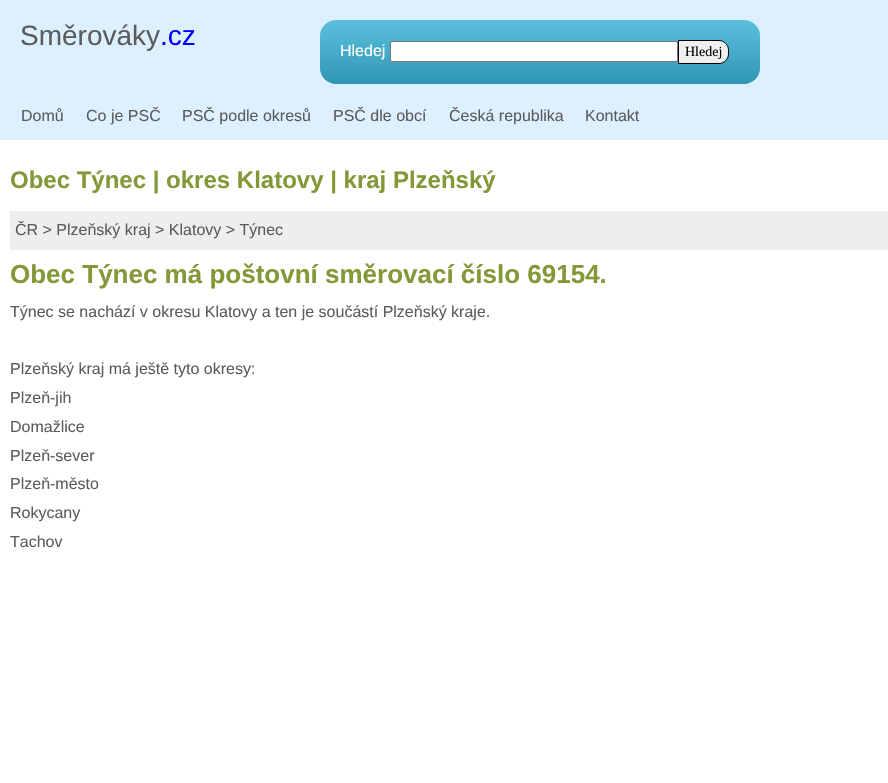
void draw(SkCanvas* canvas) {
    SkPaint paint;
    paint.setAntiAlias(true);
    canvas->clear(0xFFFFFFFF);
    paint.setColor(0xFFDDF0FF);
    canvas->drawRect(SkRect::MakeXYWH(0, 0, 888, 140), paint);
    SkFont font1(fontMgr->matchFamilyStyle("Liberation Sans", SkFontStyle::Normal()), 28);
    font1.setSubpixel(true);
    paint.setColor(0xFF5C5C5C);
    canvas->drawString("Směrováky", 20, 45, font1, paint);
    paint.setColor(0xFF0000FF);
    canvas->drawString(".cz", 160, 45, font1, paint);
    {
        const SkColor colors[] = {0xFF5BC0DE, 0xFF2F96B4};
        const float stops[] = {0, 1};
        const SkPoint ends[] = {{540, 20}, {540, 84}};
        paint.setShader(SkGradientShader::MakeLinear(ends, colors, stops, 2, SkTileMode::kClamp));
        paint.setAlpha(255);
    }
    canvas->drawRoundRect(SkRect::MakeXYWH(320, 20, 440, 64), 16, 16, paint);
    SkFont font2(fontMgr->matchFamilyStyle("Liberation Sans", SkFontStyle::Normal()), 16);
    font2.setSubpixel(true);
    paint.setShader(nullptr);
    paint.setColor(0xFFFFFFFF);
    canvas->drawString("Hledej", 340, 56, font2, paint);
    canvas->drawRoundRect(SkRect::MakeXYWH(390.5f, 41.5f, 287, 20), 1.5f, 1.5f, paint);
    paint.setStyle(SkPaint::kStroke_Style);
    paint.setStrokeWidth(1);
    paint.setColor(0xFF767676);
    canvas->drawRoundRect(SkRect::MakeXYWH(390.5f, 41.5f, 287, 20), 1.5f, 1.5f, paint);
    paint.setStyle(SkPaint::kFill_Style);
    paint.setColor(0xFFEFEFEF);
    canvas->drawPath(SkPathBuilder().moveTo(678.5f, 40.5f).lineTo(719, 40.5f).cubicTo(724, 40.5f, 728.5f, 45, 728.5f, 50).lineTo(728.5f, 54).cubicTo(728.5f, 59, 724, 63.5f, 719, 63.5f).lineTo(678.5f, 63.5f).close().detach(), paint);
    paint.setStyle(SkPaint::kStroke_Style);
    paint.setColor(0xFF000000);
    canvas->drawPath(SkPathBuilder().moveTo(678.5f, 40.5f).lineTo(719, 40.5f).cubicTo(724, 40.5f, 728.5f, 45, 728.5f, 50).lineTo(728.5f, 54).cubicTo(728.5f, 59, 724, 63.5f, 719, 63.5f).lineTo(678.5f, 63.5f).close().detach(), paint);
    SkFont font3(fontMgr->matchFamilyStyle("Liberation Serif", SkFontStyle::Normal()), 14);
    font3.setSubpixel(true);
    paint.setStyle(SkPaint::kFill_Style);
    canvas->drawString("Hledej", 685, 56, font3, paint);
    paint.setColor(0xFF5C5C5C);
    canvas->drawString("Domů", 21, 121, font2, paint);
    canvas->drawString("Co je PSČ", 86, 121, font2, paint);
    canvas->drawString("PSČ podle okresů", 182, 121, font2, paint);
    canvas->drawString("PSČ dle obcí", 333, 121, font2, paint);
    canvas->drawString("Česká republika", 449, 121, font2, paint);
    canvas->drawString("Kontakt", 585, 121, font2, paint);
    SkFont font4(fontMgr->matchFamilyStyle("Liberation Sans", SkFontStyle::Bold()), 24);
    font4.setSubpixel(true);
    paint.setColor(0xFF839837);
    canvas->drawString("Obec Týnec | okres Klatovy | kraj Plzeňský", 10, 188, font4, paint);
    paint.setColor(0xFFEEEEEE);
    canvas->drawRect(SkRect::MakeXYWH(10, 211, 878, 39), paint);
    paint.setColor(0xFF5C5C5C);
    canvas->drawString("ČR > Plzeňský kraj > Klatovy > Týnec", 15, 235, font2, paint);
    SkFont font5(fontMgr->matchFamilyStyle("Liberation Sans", SkFontStyle::Bold()), 26);
    font5.setSubpixel(true);
    paint.setColor(0xFF839837);
    canvas->drawString("Obec Týnec má poštovní směrovací číslo 69154.", 10, 283, font5, paint);
    paint.setColor(0xFF5C5C5C);
    canvas->drawString("Týnec se nachází v okresu Klatovy a ten je součástí Plzeňský kraje.", 10, 317, font2, paint);
    canvas->drawString("Plzeňský kraj má ještě tyto okresy:", 10, 374, font2, paint);
    canvas->drawString("Plzeň-jih", 10, 403, font2, paint);
    canvas->drawString("Domažlice", 10, 432, font2, paint);
    canvas->drawString("Plzeň-sever", 10, 461, font2, paint);
    canvas->drawString("Plzeň-město", 10, 489, font2, paint);
    canvas->drawString("Rokycany", 10, 518, font2, paint);
    canvas->drawString("Tachov", 10, 547, font2, paint);
}
